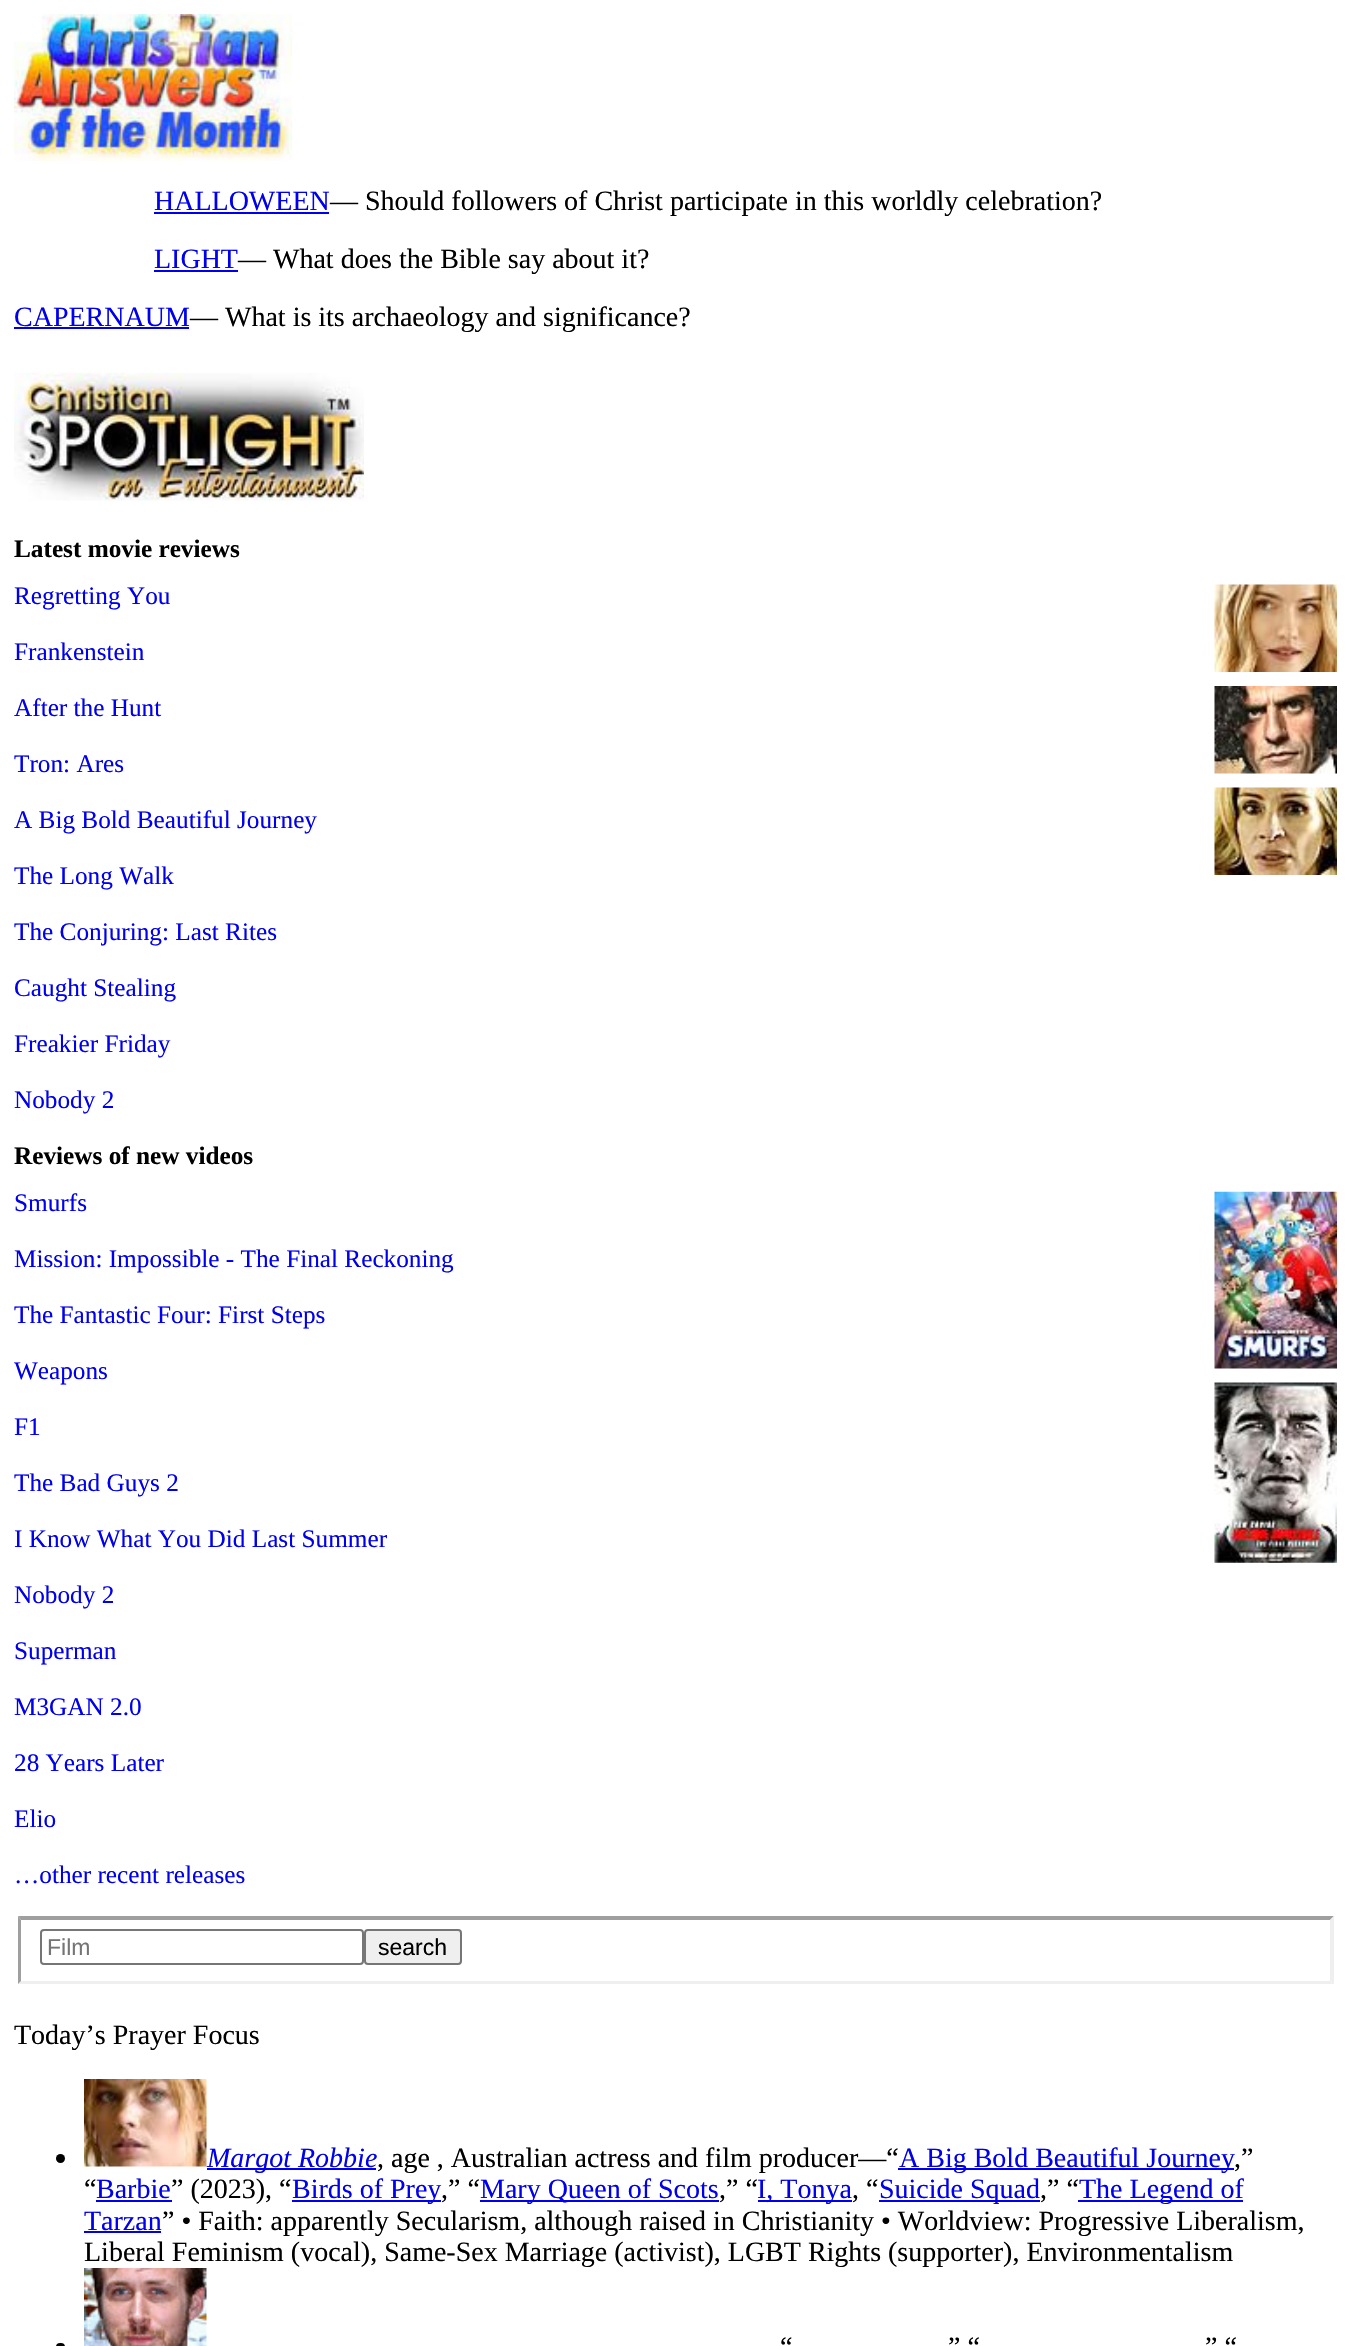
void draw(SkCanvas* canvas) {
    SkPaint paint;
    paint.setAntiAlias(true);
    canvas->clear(0xFFFFFFFF);
    canvas->drawImageRect(SkImages::DeferredFromEncodedData(SkData::MakeFromFileName("img1.png")), SkRect::MakeXYWH(14, 14, 279, 147), SkSamplingOptions());
    SkFont font1(fontMgr->matchFamilyStyle("Liberation Serif", SkFontStyle::Normal()), 28);
    font1.setSubpixel(true);
    paint.setColor(0xFF0000EE);
    canvas->drawString("HALLOWEEN", 154, 210, font1, paint);
    canvas->drawRect(SkRect::MakeXYWH(154, 212, 175, 2), paint);
    paint.setColor(0xFF000000);
    canvas->drawString("— Should followers of Christ participate in this worldly celebration?", 330, 210, font1, paint);
    paint.setColor(0xFF0000EE);
    canvas->drawString("LIGHT", 154, 268, font1, paint);
    canvas->drawRect(SkRect::MakeXYWH(154, 270, 84, 2), paint);
    paint.setColor(0xFF000000);
    canvas->drawString("— What does the Bible say about it?", 238, 268, font1, paint);
    paint.setColor(0xFF0000EE);
    canvas->drawString("CAPERNAUM", 14, 326, font1, paint);
    canvas->drawRect(SkRect::MakeXYWH(14, 327, 175, 2), paint);
    paint.setColor(0xFF000000);
    canvas->drawString("— What is its archaeology and significance?", 190, 326, font1, paint);
    canvas->drawImageRect(SkImages::DeferredFromEncodedData(SkData::MakeFromFileName("img2.png")), SkRect::MakeXYWH(14, 372, 350, 129), SkSamplingOptions());
    SkFont font2(fontMgr->matchFamilyStyle("Liberation Serif", SkFontStyle::Bold()), 25.25f);
    font2.setSubpixel(true);
    canvas->drawString("Latest movie reviews", 14, 557, font2, paint);
    SkFont font3(fontMgr->matchFamilyStyle("Liberation Serif", SkFontStyle::Normal()), 25.25f);
    font3.setSubpixel(true);
    paint.setColor(0xFF0000EE);
    canvas->drawString("Regretting You", 14, 604, font3, paint);
    canvas->drawString("Frankenstein", 14, 660, font3, paint);
    canvas->drawString("After the Hunt", 14, 716, font3, paint);
    canvas->drawString("Tron: Ares", 14, 772, font3, paint);
    canvas->drawString("A Big Bold Beautiful Journey", 14, 828, font3, paint);
    canvas->drawString("The Long Walk", 14, 884, font3, paint);
    canvas->drawString("The Conjuring: Last Rites", 14, 940, font3, paint);
    canvas->drawString("Caught Stealing", 14, 996, font3, paint);
    canvas->drawString("Freakier Friday", 14, 1052, font3, paint);
    canvas->drawString("Nobody 2", 14, 1108, font3, paint);
    canvas->drawImageRect(SkImages::DeferredFromEncodedData(SkData::MakeFromFileName("img3.png")), SkRect::MakeXYWH(1214, 584, 123, 88), SkSamplingOptions());
    canvas->drawImageRect(SkImages::DeferredFromEncodedData(SkData::MakeFromFileName("img4.png")), SkRect::MakeXYWH(1214, 686, 123, 88), SkSamplingOptions());
    canvas->drawImageRect(SkImages::DeferredFromEncodedData(SkData::MakeFromFileName("img5.png")), SkRect::MakeXYWH(1214, 787, 123, 88), SkSamplingOptions());
    paint.setColor(0xFF000000);
    canvas->drawString("Reviews of new videos", 14, 1164, font2, paint);
    paint.setColor(0xFF0000EE);
    canvas->drawString("Smurfs", 14, 1211, font3, paint);
    canvas->drawString("Mission: Impossible - The Final Reckoning", 14, 1267, font3, paint);
    canvas->drawString("The Fantastic Four: First Steps", 14, 1323, font3, paint);
    canvas->drawString("Weapons", 14, 1379, font3, paint);
    canvas->drawString("F1", 14, 1435, font3, paint);
    canvas->drawString("The Bad Guys 2", 14, 1491, font3, paint);
    canvas->drawString("I Know What You Did Last Summer", 14, 1547, font3, paint);
    canvas->drawString("Nobody 2", 14, 1603, font3, paint);
    canvas->drawString("Superman", 14, 1659, font3, paint);
    canvas->drawString("M3GAN 2.0", 14, 1715, font3, paint);
    canvas->drawString("28 Years Later", 14, 1771, font3, paint);
    canvas->drawString("Elio", 14, 1827, font3, paint);
    canvas->drawString("…other recent releases", 14, 1883, font3, paint);
    canvas->drawImageRect(SkImages::DeferredFromEncodedData(SkData::MakeFromFileName("img6.png")), SkRect::MakeXYWH(1214, 1191, 123, 178), SkSamplingOptions());
    canvas->drawImageRect(SkImages::DeferredFromEncodedData(SkData::MakeFromFileName("img7.png")), SkRect::MakeXYWH(1214, 1382, 123, 181), SkSamplingOptions());
    paint.setColor(0xFF9F9F9F);
    canvas->drawPath(SkPathBuilder().moveTo(18, 1916).lineTo(1334, 1916).lineTo(1330, 1920).lineTo(21, 1920).close().detach(), paint);
    paint.setColor(0xFFEFEFEF);
    canvas->drawPath(SkPathBuilder().moveTo(1334, 1916).lineTo(1334, 1984).lineTo(1330, 1981).lineTo(1330, 1920).close().detach(), paint);
    canvas->drawPath(SkPathBuilder().moveTo(1334, 1984).lineTo(18, 1984).lineTo(21, 1981).lineTo(1330, 1981).close().detach(), paint);
    paint.setColor(0xFF9F9F9F);
    canvas->drawPath(SkPathBuilder().moveTo(18, 1984).lineTo(18, 1916).lineTo(21, 1920).lineTo(21, 1981).close().detach(), paint);
    paint.setStyle(SkPaint::kStroke_Style);
    paint.setStrokeWidth(2);
    paint.setColor(0xFF767676);
    canvas->drawRoundRect(SkRect::MakeXYWH(41, 1930, 322, 34), 3, 3, paint);
    SkFont font4(fontMgr->matchFamilyStyle("Liberation Sans", SkFontStyle::Normal()), 23);
    font4.setSubpixel(true);
    paint.setStyle(SkPaint::kFill_Style);
    paint.setColor(0xFF757575);
    canvas->drawString("Film", 47, 1955, font4, paint);
    paint.setColor(0xFFEFEFEF);
    canvas->drawRoundRect(SkRect::MakeXYWH(365, 1930, 96, 34), 3, 3, paint);
    paint.setStyle(SkPaint::kStroke_Style);
    paint.setColor(0xFF767676);
    canvas->drawRoundRect(SkRect::MakeXYWH(365, 1930, 96, 34), 3, 3, paint);
    paint.setStyle(SkPaint::kFill_Style);
    paint.setColor(0xFF000000);
    canvas->drawString("search", 378, 1955, font4, paint);
    canvas->drawString("Today’s Prayer Focus", 14, 2044, font1, paint);
    canvas->drawCircle(60.5f, 2158.5f, 4.5f, paint);
    canvas->drawImageRect(SkImages::DeferredFromEncodedData(SkData::MakeFromFileName("img8.png")), SkRect::MakeXYWH(84, 2079, 123, 88), SkSamplingOptions());
    paint.setColor(0xFF0000EE);
    canvas->drawRect(SkRect::MakeXYWH(207, 2168, 169, 2), paint);
    SkFont font5(fontMgr->matchFamilyStyle("Liberation Serif", SkFontStyle::Italic()), 28);
    font5.setSubpixel(true);
    canvas->drawString("Margot Robbie", 207, 2167, font5, paint);
    paint.setColor(0xFF000000);
    canvas->drawString(", age , Australian actress and film producer—“", 377, 2167, font1, paint);
    paint.setColor(0xFF0000EE);
    canvas->drawRect(SkRect::MakeXYWH(898, 2168, 336, 2), paint);
    canvas->drawString("A Big Bold Beautiful Journey", 899, 2167, font1, paint);
    paint.setColor(0xFF000000);
    canvas->drawString(",”", 1234, 2167, font1, paint);
    canvas->drawString("“", 84, 2198, font1, paint);
    paint.setColor(0xFF0000EE);
    canvas->drawString("Barbie", 96, 2198, font1, paint);
    canvas->drawRect(SkRect::MakeXYWH(96, 2200, 76, 2), paint);
    paint.setColor(0xFF000000);
    canvas->drawString("” (2023), “", 171, 2198, font1, paint);
    paint.setColor(0xFF0000EE);
    canvas->drawRect(SkRect::MakeXYWH(292, 2200, 149, 2), paint);
    canvas->drawString("Birds of Prey", 292, 2198, font1, paint);
    paint.setColor(0xFF000000);
    canvas->drawString(",” “", 441, 2198, font1, paint);
    paint.setColor(0xFF0000EE);
    canvas->drawRect(SkRect::MakeXYWH(480, 2200, 239, 2), paint);
    canvas->drawString("Mary Queen of Scots", 480, 2198, font1, paint);
    paint.setColor(0xFF000000);
    canvas->drawString(",” “", 719, 2198, font1, paint);
    paint.setColor(0xFF0000EE);
    canvas->drawRect(SkRect::MakeXYWH(758, 2200, 94, 2), paint);
    canvas->drawString("I, Tonya", 757, 2198, font1, paint);
    paint.setColor(0xFF000000);
    canvas->drawString(", “", 852, 2198, font1, paint);
    paint.setColor(0xFF0000EE);
    canvas->drawRect(SkRect::MakeXYWH(879, 2200, 161, 2), paint);
    canvas->drawString("Suicide Squad", 879, 2198, font1, paint);
    paint.setColor(0xFF000000);
    canvas->drawString(",” “", 1040, 2198, font1, paint);
    paint.setColor(0xFF0000EE);
    canvas->drawRect(SkRect::MakeXYWH(1078, 2200, 165, 2), paint);
    canvas->drawString("The Legend of", 1079, 2198, font1, paint);
    canvas->drawString("Tarzan", 84, 2230, font1, paint);
    canvas->drawRect(SkRect::MakeXYWH(84, 2231, 77, 2), paint);
    paint.setColor(0xFF000000);
    canvas->drawString("” • Faith: apparently Secularism, although raised in Christianity • Worldview: Progressive Liberalism,", 162, 2230, font1, paint);
    canvas->drawString("Liberal Feminism (vocal), Same-Sex Marriage (activist), LGBT Rights (supporter), Environmentalism", 84, 2261, font1, paint);
    canvas->drawImageRect(SkImages::DeferredFromEncodedData(SkData::MakeFromFileName("img9.png")), SkRect::MakeXYWH(84, 2268, 123, 78), SkSamplingOptions());
    canvas->drawString("“", 780, 2356, font1, paint);
    canvas->drawString("” “", 948, 2356, font1, paint);
    canvas->drawString("” “", 1205, 2356, font1, paint);
    canvas->drawRoundRect(SkRect::MakeXYWH(56, 2343, 9, 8), 4.5f, 4.5f, paint);
}
